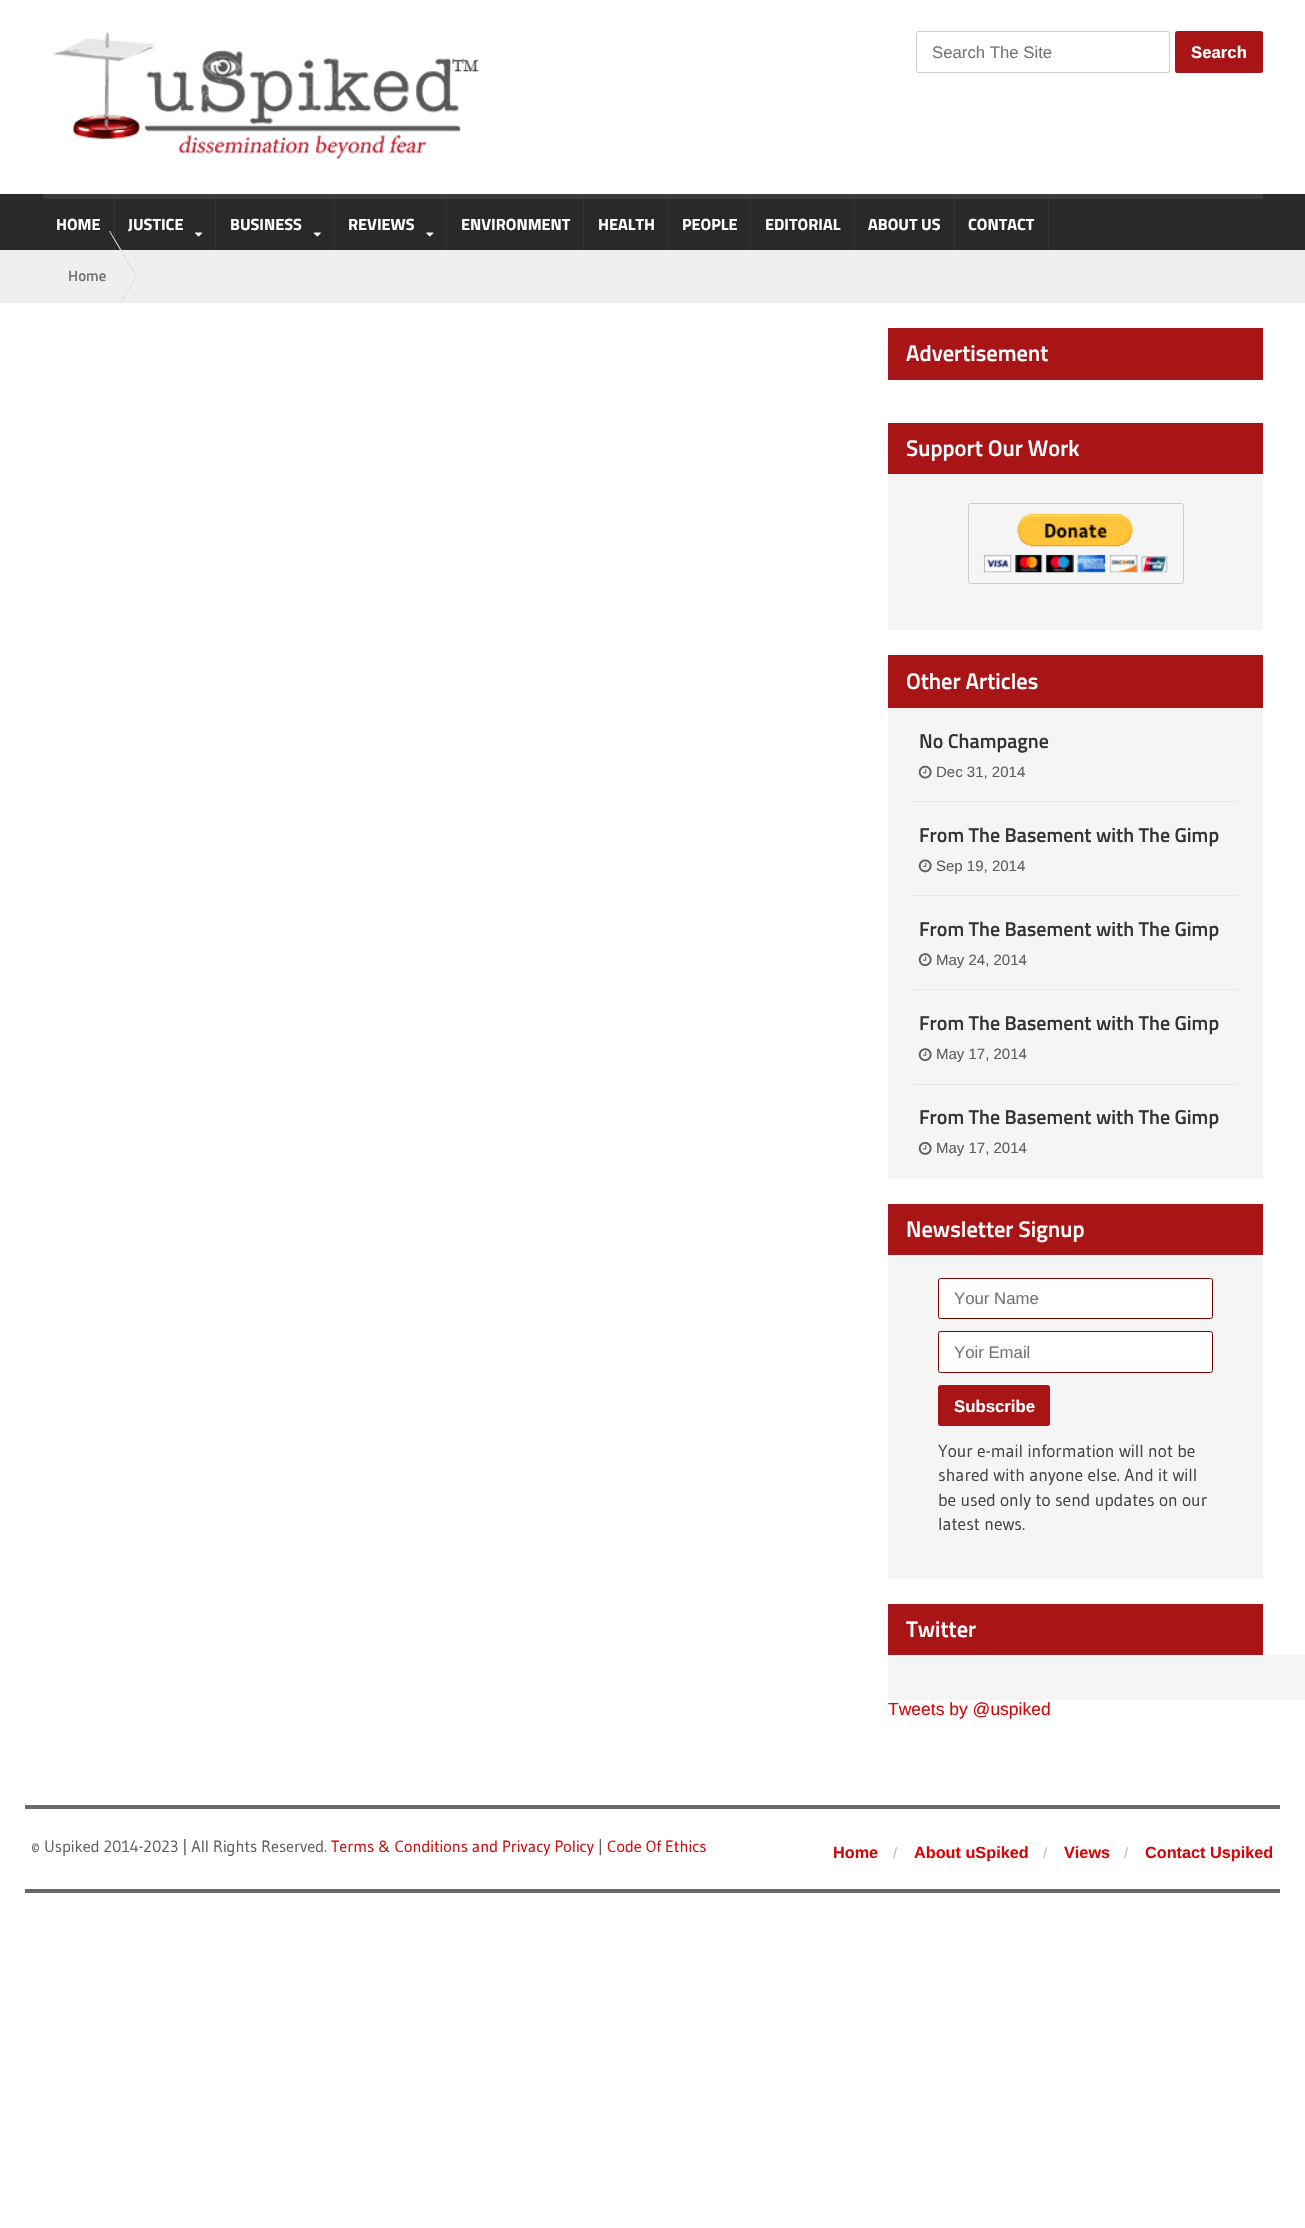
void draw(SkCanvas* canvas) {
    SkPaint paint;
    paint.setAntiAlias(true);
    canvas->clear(0xFFFFFFFF);
    canvas->drawImageRect(SkImages::DeferredFromEncodedData(SkData::MakeFromFileName("img1.png")), SkRect::MakeXYWH(53, 31, 426, 128), SkSamplingOptions());
    paint.setStyle(SkPaint::kStroke_Style);
    paint.setStrokeWidth(1);
    paint.setColor(0xFFCCCCCC);
    canvas->drawRoundRect(SkRect::MakeXYWH(916.5f, 31.5f, 253, 41), 2, 2, paint);
    SkFont font1(fontMgr->matchFamilyStyle("Liberation Sans", SkFontStyle::Normal()), 16.75f);
    font1.setSubpixel(true);
    paint.setStyle(SkPaint::kFill_Style);
    paint.setColor(0xFF757575);
    canvas->drawString("Search The Site", 932, 58, font1, paint);
    paint.setColor(0xFFA91416);
    canvas->drawRoundRect(SkRect::MakeXYWH(1175, 31, 88, 42), 2.5f, 2.5f, paint);
    SkFont font2(fontMgr->matchFamilyStyle("Liberation Sans", SkFontStyle::Bold()), 16.75f);
    font2.setSubpixel(true);
    paint.setColor(0xFFFFFFFF);
    canvas->drawString("Search", 1191, 58, font2, paint);
    paint.setColor(0xFF292929);
    canvas->drawRect(SkRect::MakeXYWH(0, 194, 1305, 56), paint);
    paint.setColor(0xFF3C3C3C);
    canvas->drawRect(SkRect::MakeXYWH(1049, 194, 214, 5), paint);
    canvas->drawRect(SkRect::MakeXYWH(43, 194, 1006, 5), paint);
    SkFont font3(fontMgr->matchFamilyStyle("Titillium Web", SkFontStyle::Bold()), 16.25f);
    font3.setSubpixel(true);
    paint.setColor(0xFFFFFFFF);
    canvas->drawString("HOME", 56, 230, font3, paint);
    paint.setColor(0xFF363636);
    canvas->drawRect(SkRect::MakeXYWH(114, 199, 1, 51), paint);
    paint.setColor(0xFFFFFFFF);
    canvas->drawString("JUSTICE", 128, 230, font3, paint);
    canvas->drawImageRect(SkImages::DeferredFromEncodedData(SkData::MakeFromFileName("img2.png")), SkRect::MakeXYWH(195, 232, 8, 5), SkSamplingOptions());
    paint.setColor(0xFF363636);
    canvas->drawRect(SkRect::MakeXYWH(215, 199, 1, 51), paint);
    paint.setColor(0xFFFFFFFF);
    canvas->drawString("BUSINESS", 230, 230, font3, paint);
    canvas->drawImageRect(SkImages::DeferredFromEncodedData(SkData::MakeFromFileName("img3.png")), SkRect::MakeXYWH(313, 232, 8, 5), SkSamplingOptions());
    paint.setColor(0xFF363636);
    canvas->drawRect(SkRect::MakeXYWH(334, 199, 1, 51), paint);
    paint.setColor(0xFFFFFFFF);
    canvas->drawString("REVIEWS", 348, 230, font3, paint);
    canvas->drawImageRect(SkImages::DeferredFromEncodedData(SkData::MakeFromFileName("img4.png")), SkRect::MakeXYWH(426, 232, 8, 5), SkSamplingOptions());
    paint.setColor(0xFF363636);
    canvas->drawRect(SkRect::MakeXYWH(446, 199, 1, 51), paint);
    paint.setColor(0xFFFFFFFF);
    canvas->drawString("ENVIRONMENT", 461, 230, font3, paint);
    paint.setColor(0xFF363636);
    canvas->drawRect(SkRect::MakeXYWH(583, 199, 1, 51), paint);
    paint.setColor(0xFFFFFFFF);
    canvas->drawString("HEALTH", 598, 230, font3, paint);
    paint.setColor(0xFF363636);
    canvas->drawRect(SkRect::MakeXYWH(668, 199, 1, 51), paint);
    paint.setColor(0xFFFFFFFF);
    canvas->drawString("PEOPLE", 682, 230, font3, paint);
    paint.setColor(0xFF363636);
    canvas->drawRect(SkRect::MakeXYWH(750, 199, 1, 51), paint);
    paint.setColor(0xFFFFFFFF);
    canvas->drawString("EDITORIAL", 765, 230, font3, paint);
    paint.setColor(0xFF363636);
    canvas->drawRect(SkRect::MakeXYWH(854, 199, 1, 51), paint);
    paint.setColor(0xFFFFFFFF);
    canvas->drawString("ABOUT US", 868, 230, font3, paint);
    paint.setColor(0xFF363636);
    canvas->drawRect(SkRect::MakeXYWH(954, 199, 1, 51), paint);
    paint.setColor(0xFFFFFFFF);
    canvas->drawString("CONTACT", 968, 230, font3, paint);
    paint.setColor(0xFF363636);
    canvas->drawRect(SkRect::MakeXYWH(1048, 199, 1, 51), paint);
    paint.setColor(0xFFEFEFEF);
    canvas->drawRect(SkRect::MakeXYWH(0, 250, 1305, 53), paint);
    SkFont font4(fontMgr->matchFamilyStyle("Titillium Web", SkFontStyle(600, SkFontStyle::kNormal_Width, SkFontStyle::kUpright_Slant)), 15);
    font4.setSubpixel(true);
    paint.setColor(0xFF757575);
    canvas->drawString("Home", 68, 281, font4, paint);
    paint.setColor(0xFFE0E0E0);
    canvas->drawPath(SkPathBuilder().moveTo(109, 231).lineTo(110, 231).lineTo(137, 276).lineTo(136, 277).close().detach(), paint);
    canvas->save();
    canvas->clipRect(SkRect::MakeXYWH(43, 250, 1220, 53));
    paint.setColor(0xFFEFEFEF);
    canvas->drawPath(SkPathBuilder().moveTo(136, 276).lineTo(158, 289).lineTo(132, 334).lineTo(109, 321).close().detach(), paint);
    paint.setColor(0xFFE0E0E0);
    canvas->drawPath(SkPathBuilder().moveTo(136, 276).lineTo(137, 276).lineTo(110, 322).lineTo(109, 321).close().detach(), paint);
    canvas->restore();
    paint.setColor(0xFFA91416);
    canvas->drawRect(SkRect::MakeXYWH(888, 328, 375, 52), paint);
    SkFont font5(fontMgr->matchFamilyStyle("Titillium Web", SkFontStyle(600, SkFontStyle::kNormal_Width, SkFontStyle::kUpright_Slant)), 22.5f);
    font5.setSubpixel(true);
    paint.setColor(0xFFFFFFFF);
    canvas->drawString("Advertisement", 906, 361, font5, paint);
    paint.setColor(0xFFA91416);
    canvas->drawRect(SkRect::MakeXYWH(888, 423, 375, 51), paint);
    paint.setColor(0xFFFFFFFF);
    canvas->drawString("Support Our Work", 906, 456, font5, paint);
    paint.setColor(0xFFF5F5F5);
    canvas->drawRect(SkRect::MakeXYWH(888, 474, 375, 156), paint);
    paint.setStyle(SkPaint::kStroke_Style);
    paint.setColor(0xFFCCCCCC);
    canvas->drawRoundRect(SkRect::MakeXYWH(968.5f, 503.5f, 215, 80), 2, 2, paint);
    canvas->drawImageRect(SkImages::DeferredFromEncodedData(SkData::MakeFromFileName("img5.png")), SkRect::MakeXYWH(983, 513, 185, 60), SkSamplingOptions());
    paint.setStyle(SkPaint::kFill_Style);
    paint.setColor(0xFFA91416);
    canvas->drawRect(SkRect::MakeXYWH(888, 655, 375, 53), paint);
    paint.setColor(0xFFFFFFFF);
    canvas->drawString("Other Articles", 906, 689, font5, paint);
    paint.setColor(0xFFF5F5F5);
    canvas->drawRect(SkRect::MakeXYWH(888, 708, 375, 471), paint);
    paint.setColor(0xFFE7E7E7);
    canvas->drawRect(SkRect::MakeXYWH(913, 801, 325, 1), paint);
    SkFont font6(fontMgr->matchFamilyStyle("Titillium Web", SkFontStyle(600, SkFontStyle::kNormal_Width, SkFontStyle::kUpright_Slant)), 20);
    font6.setSubpixel(true);
    paint.setColor(0xFF353535);
    canvas->drawString("No Champagne", 919, 748, font6, paint);
    canvas->drawImageRect(SkImages::DeferredFromEncodedData(SkData::MakeFromFileName("img6.png")), SkRect::MakeXYWH(918, 765, 14, 14), SkSamplingOptions());
    SkFont font7(fontMgr->matchFamilyStyle("Liberation Sans", SkFontStyle::Normal()), 15);
    font7.setSubpixel(true);
    paint.setColor(0xFF5E5E5E);
    canvas->drawString("Dec 31, 2014", 936, 777, font7, paint);
    paint.setColor(0xFFE7E7E7);
    canvas->drawRect(SkRect::MakeXYWH(913, 895, 325, 1), paint);
    paint.setColor(0xFF353535);
    canvas->drawString("From The Basement with The Gimp", 919, 842, font6, paint);
    canvas->drawImageRect(SkImages::DeferredFromEncodedData(SkData::MakeFromFileName("img7.png")), SkRect::MakeXYWH(918, 859, 14, 14), SkSamplingOptions());
    paint.setColor(0xFF5E5E5E);
    canvas->drawString("Sep 19, 2014", 936, 871, font7, paint);
    paint.setColor(0xFFE7E7E7);
    canvas->drawRect(SkRect::MakeXYWH(913, 989, 325, 1), paint);
    paint.setColor(0xFF353535);
    canvas->drawString("From The Basement with The Gimp", 919, 936, font6, paint);
    canvas->drawImageRect(SkImages::DeferredFromEncodedData(SkData::MakeFromFileName("img8.png")), SkRect::MakeXYWH(918, 953, 14, 14), SkSamplingOptions());
    paint.setColor(0xFF5E5E5E);
    canvas->drawString("May 24, 2014", 936, 965, font7, paint);
    paint.setColor(0xFFE7E7E7);
    canvas->drawRect(SkRect::MakeXYWH(913, 1084, 325, 1), paint);
    paint.setColor(0xFF353535);
    canvas->drawString("From The Basement with The Gimp", 919, 1030, font6, paint);
    canvas->drawImageRect(SkImages::DeferredFromEncodedData(SkData::MakeFromFileName("img8.png")), SkRect::MakeXYWH(918, 1048, 14, 14), SkSamplingOptions());
    paint.setColor(0xFF5E5E5E);
    canvas->drawString("May 17, 2014", 936, 1059, font7, paint);
    paint.setColor(0xFF353535);
    canvas->drawString("From The Basement with The Gimp", 919, 1124, font6, paint);
    canvas->drawImageRect(SkImages::DeferredFromEncodedData(SkData::MakeFromFileName("img9.png")), SkRect::MakeXYWH(918, 1142, 14, 13), SkSamplingOptions());
    paint.setColor(0xFF5E5E5E);
    canvas->drawString("May 17, 2014", 936, 1153, font7, paint);
    paint.setColor(0xFFA91416);
    canvas->drawRect(SkRect::MakeXYWH(888, 1204, 375, 51), paint);
    paint.setColor(0xFFFFFFFF);
    canvas->drawString("Newsletter Signup", 906, 1237, font5, paint);
    paint.setColor(0xFFF5F5F5);
    canvas->drawRect(SkRect::MakeXYWH(888, 1255, 375, 324), paint);
    paint.setColor(0xFFFFFFFF);
    canvas->drawRoundRect(SkRect::MakeXYWH(938.5f, 1278.5f, 274, 40), 2, 2, paint);
    paint.setStyle(SkPaint::kStroke_Style);
    paint.setColor(0xFF7C0200);
    canvas->drawRoundRect(SkRect::MakeXYWH(938.5f, 1278.5f, 274, 40), 2, 2, paint);
    paint.setStyle(SkPaint::kFill_Style);
    paint.setColor(0xFF757575);
    canvas->drawString("Your Name", 954, 1304, font1, paint);
    paint.setColor(0xFFFFFFFF);
    canvas->drawRoundRect(SkRect::MakeXYWH(938.5f, 1331.5f, 274, 41), 2, 2, paint);
    paint.setStyle(SkPaint::kStroke_Style);
    paint.setColor(0xFF7C0200);
    canvas->drawRoundRect(SkRect::MakeXYWH(938.5f, 1331.5f, 274, 41), 2, 2, paint);
    paint.setStyle(SkPaint::kFill_Style);
    paint.setColor(0xFF757575);
    canvas->drawString("Yoir Email", 954, 1358, font1, paint);
    paint.setColor(0xFFA91416);
    canvas->drawRoundRect(SkRect::MakeXYWH(938, 1385, 112, 41), 2.5f, 2.5f, paint);
    paint.setColor(0xFFFFFFFF);
    canvas->drawString("Subscribe", 954, 1412, font2, paint);
    SkFont font8(fontMgr->matchFamilyStyle("Gudea", SkFontStyle::Normal()), 17.5f);
    font8.setSubpixel(true);
    paint.setColor(0xFF434343);
    canvas->drawString("Your e-mail information will not be", 938, 1457, font8, paint);
    canvas->drawString("shared with anyone else. And it will", 938, 1481, font8, paint);
    canvas->drawString("be used only to send updates on our", 938, 1506, font8, paint);
    canvas->drawString("latest news.", 938, 1530, font8, paint);
    paint.setColor(0xFFA91416);
    canvas->drawRect(SkRect::MakeXYWH(888, 1604, 375, 51), paint);
    paint.setColor(0xFFFFFFFF);
    canvas->drawString("Twitter", 906, 1637, font5, paint);
    paint.setColor(0xFFF5F5F5);
    canvas->drawRect(SkRect::MakeXYWH(888, 1655, 417, 45), paint);
    SkFont font9(fontMgr->matchFamilyStyle("Liberation Sans", SkFontStyle::Normal()), 17.5f);
    font9.setSubpixel(true);
    paint.setColor(0xFFD30808);
    canvas->drawString("Tweets by @uspiked", 888, 1715, font9, paint);
    paint.setColor(0xFF696969);
    canvas->drawRect(SkRect::MakeXYWH(25, 1805, 1255, 4), paint);
    canvas->drawRect(SkRect::MakeXYWH(25, 1889, 1255, 4), paint);
    SkFont font10(fontMgr->matchFamilyStyle("Gudea", SkFontStyle::Normal()), 16.25f);
    font10.setSubpixel(true);
    paint.setColor(0xFF5E5E5E);
    canvas->drawString("© Uspiked 2014-2023 | All Rights Reserved.", 31, 1852, font10, paint);
    paint.setColor(0xFFD30808);
    canvas->drawString("Terms & Conditions and Privacy Policy", 331, 1852, font10, paint);
    paint.setColor(0xFF5E5E5E);
    canvas->drawString("|", 598, 1852, font10, paint);
    paint.setColor(0xFFD30808);
    canvas->drawString("Code Of Ethics", 607, 1852, font10, paint);
    SkFont font11(fontMgr->matchFamilyStyle("Liberation Sans", SkFontStyle::Bold()), 16.25f);
    font11.setSubpixel(true);
    canvas->drawString("Home", 833, 1858, font11, paint);
    paint.setColor(0xFFBFBFBF);
    canvas->drawString("/", 893, 1858, font7, paint);
    paint.setColor(0xFFD30808);
    canvas->drawString("About uSpiked", 914, 1858, font11, paint);
    paint.setColor(0xFFBFBFBF);
    canvas->drawString("/", 1043, 1858, font7, paint);
    paint.setColor(0xFFD30808);
    canvas->drawString("Views", 1064, 1858, font11, paint);
    paint.setColor(0xFFBFBFBF);
    canvas->drawString("/", 1124, 1858, font7, paint);
    paint.setColor(0xFFD30808);
    canvas->drawString("Contact Uspiked", 1145, 1858, font11, paint);
}
